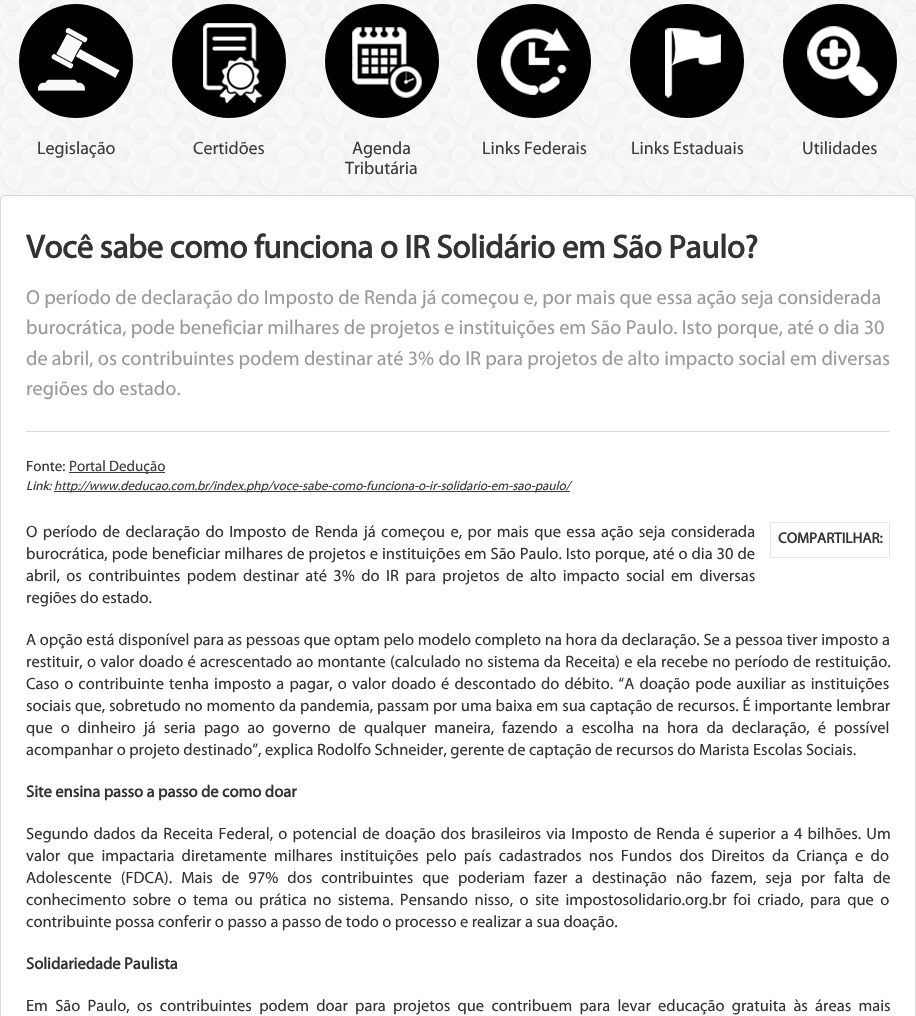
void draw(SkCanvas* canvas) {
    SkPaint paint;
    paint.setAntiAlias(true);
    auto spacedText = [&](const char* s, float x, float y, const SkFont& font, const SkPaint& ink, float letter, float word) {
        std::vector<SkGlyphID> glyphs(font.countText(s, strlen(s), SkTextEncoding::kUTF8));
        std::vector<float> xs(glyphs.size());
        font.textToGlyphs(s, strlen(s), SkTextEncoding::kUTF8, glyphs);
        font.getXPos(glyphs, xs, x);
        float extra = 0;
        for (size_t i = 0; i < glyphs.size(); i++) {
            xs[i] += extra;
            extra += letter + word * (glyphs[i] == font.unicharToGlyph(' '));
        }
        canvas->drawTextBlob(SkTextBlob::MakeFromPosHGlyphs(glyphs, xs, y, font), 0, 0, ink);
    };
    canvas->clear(0xFFFFFFFF);
    canvas->drawImageRect(SkImages::DeferredFromEncodedData(SkData::MakeFromFileName("img1.png")), SkRect::MakeXYWH(0, 0, 916, 200), SkSamplingOptions());
    paint.setColor(0xFF000000);
    canvas->drawCircle(76, 61, 57, paint);
    canvas->drawImageRect(SkImages::DeferredFromEncodedData(SkData::MakeFromFileName("img2.png")), SkRect::MakeXYWH(38, 28, 82, 63), SkSamplingOptions());
    SkFont font1(fontMgr->matchFamilyStyle("Myriad", SkFontStyle::Normal()), 18);
    font1.setSubpixel(true);
    paint.setColor(0xFF3C3C3C);
    canvas->drawString("Legislação", 37, 154, font1, paint);
    paint.setColor(0xFF000000);
    canvas->drawCircle(229, 61, 57, paint);
    canvas->drawImageRect(SkImages::DeferredFromEncodedData(SkData::MakeFromFileName("img3.png")), SkRect::MakeXYWH(203, 23, 59, 80), SkSamplingOptions());
    paint.setColor(0xFF3C3C3C);
    canvas->drawString("Certidões", 193, 154, font1, paint);
    paint.setColor(0xFF000000);
    canvas->drawCircle(382, 61, 57, paint);
    canvas->drawImageRect(SkImages::DeferredFromEncodedData(SkData::MakeFromFileName("img4.png")), SkRect::MakeXYWH(352, 27, 70, 71), SkSamplingOptions());
    paint.setColor(0xFF3C3C3C);
    canvas->drawString("Agenda", 352, 154, font1, paint);
    canvas->drawString("Tributária", 345, 174, font1, paint);
    paint.setColor(0xFF000000);
    canvas->drawCircle(534, 61, 57, paint);
    canvas->drawImageRect(SkImages::DeferredFromEncodedData(SkData::MakeFromFileName("img5.png")), SkRect::MakeXYWH(501, 28, 69, 67), SkSamplingOptions());
    paint.setColor(0xFF3C3C3C);
    canvas->drawString("Links Federais", 482, 154, font1, paint);
    paint.setColor(0xFF000000);
    canvas->drawCircle(687, 61, 57, paint);
    canvas->drawImageRect(SkImages::DeferredFromEncodedData(SkData::MakeFromFileName("img6.png")), SkRect::MakeXYWH(665, 28, 56, 70), SkSamplingOptions());
    paint.setColor(0xFF3C3C3C);
    canvas->drawString("Links Estaduais", 631, 154, font1, paint);
    paint.setColor(0xFF000000);
    canvas->drawCircle(840, 61, 57, paint);
    canvas->drawImageRect(SkImages::DeferredFromEncodedData(SkData::MakeFromFileName("img7.png")), SkRect::MakeXYWH(807, 26, 71, 70), SkSamplingOptions());
    paint.setColor(0xFF3C3C3C);
    canvas->drawString("Utilidades", 802, 154, font1, paint);
    paint.setColor(0xFFFFFFFF);
    canvas->drawRoundRect(SkRect::MakeXYWH(0, 195, 916, 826), 5, 5, paint);
    paint.setStyle(SkPaint::kStroke_Style);
    paint.setStrokeWidth(1);
    paint.setColor(0x26000000);
    canvas->drawRoundRect(SkRect::MakeXYWH(0.5f, 195.5f, 915, 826), 4.5f, 4.5f, paint);
    SkFont font2(fontMgr->matchFamilyStyle("Myriad", SkFontStyle::Bold()), 33);
    font2.setSubpixel(true);
    paint.setStyle(SkPaint::kFill_Style);
    paint.setColor(0xFF333333);
    spacedText("Você sabe como funciona o IR Solidário em São Paulo?", 26, 258, font2, paint, -0.25f, 0);
    SkFont font3(fontMgr->matchFamilyStyle("Myriad", SkFontStyle::Normal()), 20.25f);
    font3.setSubpixel(true);
    paint.setColor(0xFF999999);
    canvas->drawString("O período de declaração do Imposto de Renda já começou e, por mais que essa ação seja considerada", 26, 304, font3, paint);
    canvas->drawString("burocrática, pode beneficiar milhares de projetos e instituições em São Paulo. Isto porque, até o dia 30", 26, 334, font3, paint);
    canvas->drawString("de abril, os contribuintes podem destinar até 3% do IR para projetos de alto impacto social em diversas", 26, 365, font3, paint);
    canvas->drawString("regiões do estado.", 26, 395, font3, paint);
    paint.setColor(0xFFDDDDDD);
    canvas->drawRect(SkRect::MakeXYWH(26, 431, 864, 1), paint);
    SkFont font4(fontMgr->matchFamilyStyle("Myriad", SkFontStyle::Normal()), 15);
    font4.setSubpixel(true);
    paint.setColor(0xFF333333);
    canvas->drawString("Fonte:", 26, 471, font4, paint);
    paint.setColor(0xFF3C3C3C);
    canvas->drawRect(SkRect::MakeXYWH(69, 472, 96, 1), paint);
    canvas->drawString("Portal Dedução", 69, 471, font4, paint);
    SkFont font5(fontMgr->matchFamilyStyle("Myriad", SkFontStyle::Italic()), 13);
    font5.setSubpixel(true);
    paint.setColor(0xFF333333);
    canvas->drawString("Link:", 26, 490, font5, paint);
    paint.setColor(0xFF3C3C3C);
    canvas->drawRect(SkRect::MakeXYWH(54, 491, 516, 1), paint);
    canvas->drawString("http://www.deducao.com.br/index.php/voce-sabe-como-funciona-o-ir-solidario-em-sao-paulo/", 54, 490, font5, paint);
    SkFont font6(fontMgr->matchFamilyStyle("Myriad", SkFontStyle::Normal()), 16.5f);
    font6.setSubpixel(true);
    paint.setColor(0xFF333333);
    spacedText("O período de declaração do Imposto de Renda já começou e, por mais que essa ação seja considerada", 26, 537, font6, paint, 0, 1.9f);
    spacedText("burocrática, pode beneficiar milhares de projetos e instituições em São Paulo. Isto porque, até o dia 30 de", 26, 559, font6, paint, 0, 0.5f);
    spacedText("abril, os contribuintes podem destinar até 3% do IR para projetos de alto impacto social em diversas", 26, 581, font6, paint, 0, 2.9f);
    canvas->drawString("regiões do estado.", 26, 603, font6, paint);
    paint.setStyle(SkPaint::kStroke_Style);
    paint.setColor(0xFFE6E6E6);
    canvas->drawRect(SkRect::MakeXYWH(770.5f, 522.5f, 119, 35), paint);
    SkFont font7(fontMgr->matchFamilyStyle("Myriad", SkFontStyle::Bold()), 15);
    font7.setSubpixel(true);
    paint.setStyle(SkPaint::kFill_Style);
    paint.setColor(0xFF333333);
    canvas->drawString("COMPARTILHAR:", 778, 543, font7, paint);
    spacedText("A opção está disponível para as pessoas que optam pelo modelo completo na hora da declaração. Se a pessoa tiver imposto a", 26, 645, font6, paint, 0, 0.2f);
    spacedText("restituir, o valor doado é acrescentado ao montante (calculado no sistema da Receita) e ela recebe no período de restituição.", 26, 667, font6, paint, 0, 0.7f);
    spacedText("Caso o contribuinte tenha imposto a pagar, o valor doado é descontado do débito. “A doação pode auxiliar as instituições", 26, 689, font6, paint, 0, 1.6f);
    canvas->drawString("sociais", 26, 711, font6, paint);
    spacedText("que, sobretudo no momento da pandemia, passam por uma baixa em sua captação de recursos. É importante lembrar", 75, 711, font6, paint, 0, 0.4f);
    spacedText("que o dinheiro já seria pago ao governo de qualquer maneira, fazendo a escolha na hora da declaração, é possível", 26, 733, font6, paint, 0, 4.5f);
    canvas->drawString("acompanhar o projeto destinado”, explica Rodolfo Schneider, gerente de captação de recursos do Marista Escolas Sociais.", 26, 755, font6, paint);
    SkFont font8(fontMgr->matchFamilyStyle("Myriad", SkFontStyle::Bold()), 16.5f);
    font8.setSubpixel(true);
    canvas->drawString("Site ensina passo a passo de como doar", 26, 797, font8, paint);
    spacedText("Segundo dados da Receita Federal, o potencial de doação dos brasileiros via Imposto de Renda é superior a 4 bilhões. Um", 26, 839, font6, paint, 0, 1.7f);
    spacedText("valor que impactaria diretamente milhares instituições pelo país cadastrados nos Fundos dos Direitos da Criança e do", 26, 861, font6, paint, 0, 3.75f);
    spacedText("Adolescente (FDCA). Mais de 97% dos contribuintes que poderiam fazer", 26, 883, font6, paint, 0, 5.5f);
    spacedText("a destinação não fazem, seja por falta de", 575, 883, font6, paint, 0, 5.5f);
    spacedText("conhecimento sobre o tema ou prática no sistema. Pensando nisso, o site impostosolidario.org.br foi criado, para que o", 26, 905, font6, paint, 0, 2.9f);
    canvas->drawString("contribuinte possa conferir o passo a passo de todo o processo e realizar a sua doação.", 26, 927, font6, paint);
    canvas->drawString("Solidariedade Paulista", 26, 969, font8, paint);
    spacedText("Em São Paulo, os contribuintes podem doar para projetos que contribuem para levar educação gratuita às áreas mais", 26, 1011, font6, paint, 0, 3.75f);
}
